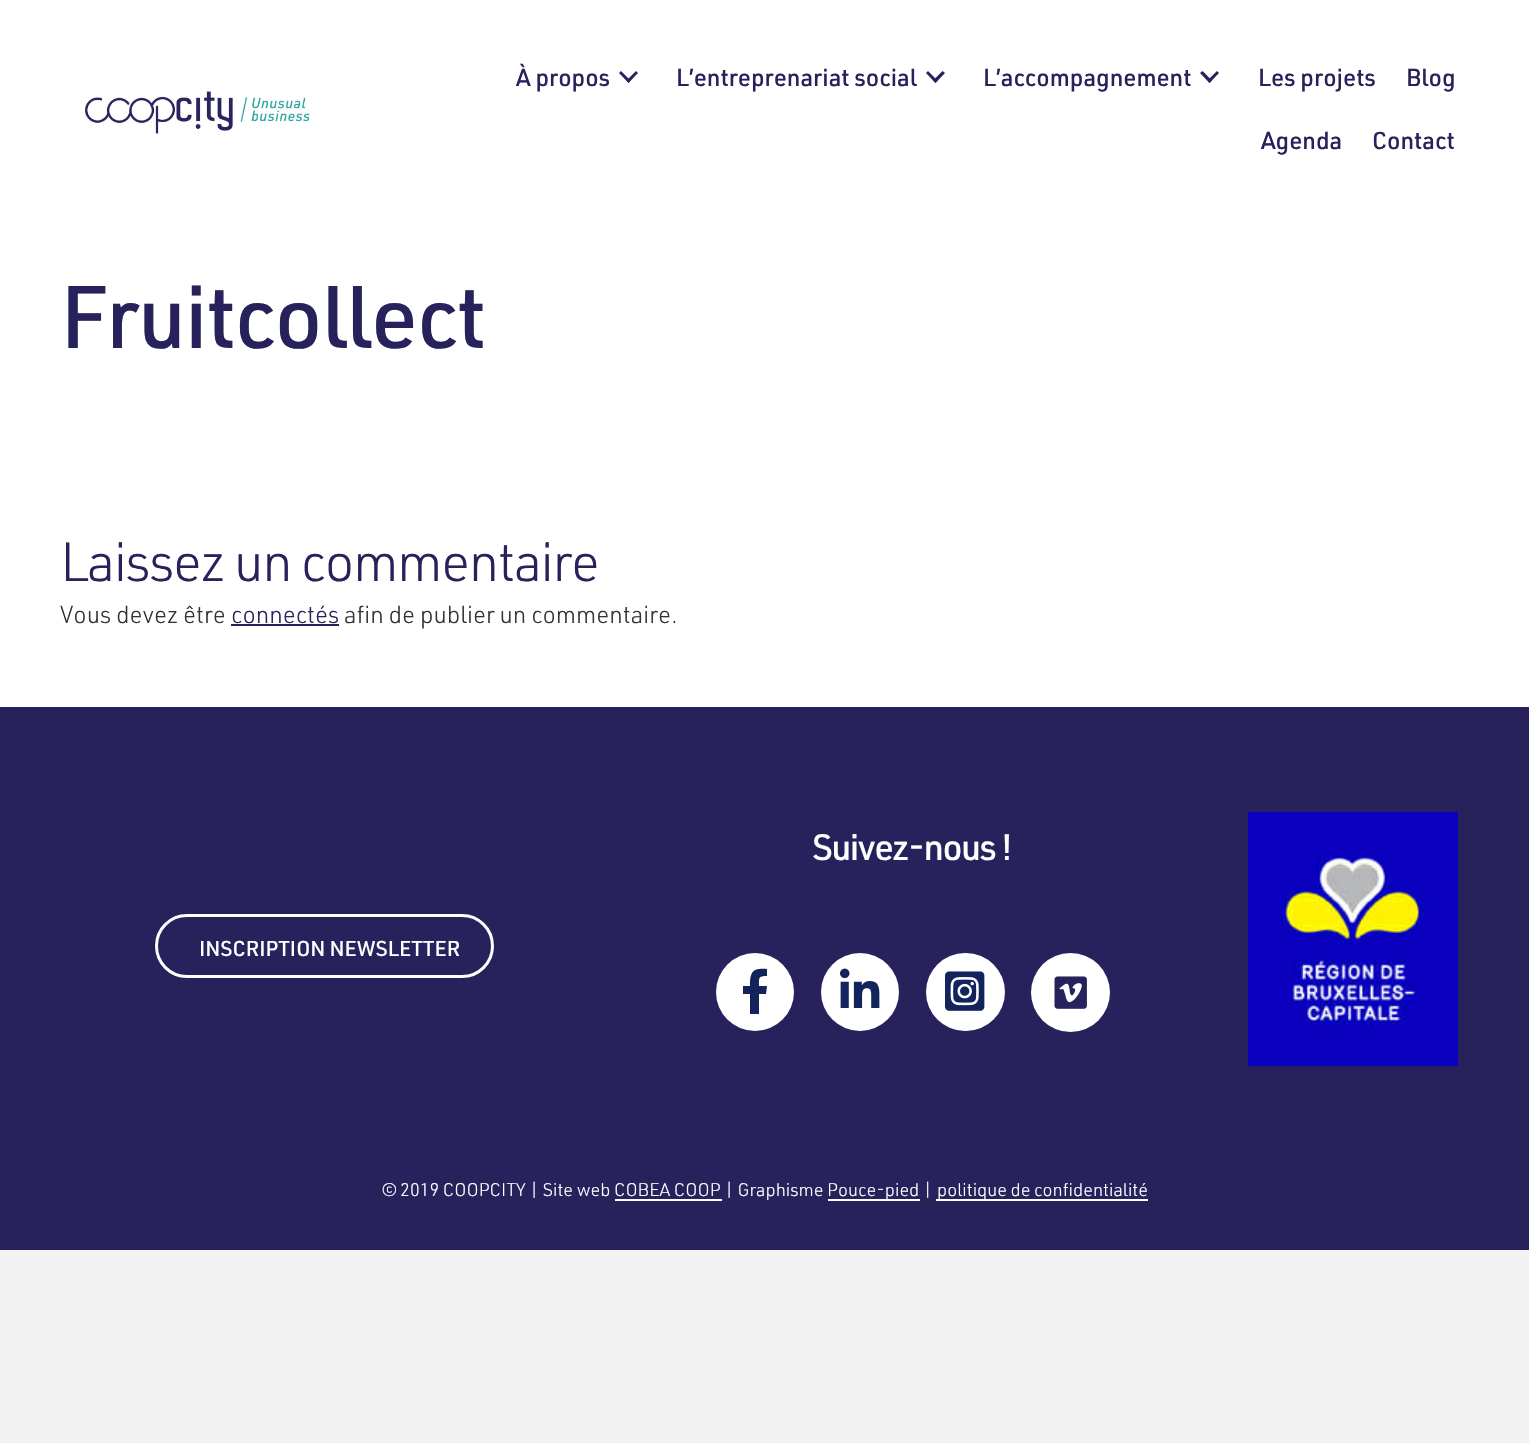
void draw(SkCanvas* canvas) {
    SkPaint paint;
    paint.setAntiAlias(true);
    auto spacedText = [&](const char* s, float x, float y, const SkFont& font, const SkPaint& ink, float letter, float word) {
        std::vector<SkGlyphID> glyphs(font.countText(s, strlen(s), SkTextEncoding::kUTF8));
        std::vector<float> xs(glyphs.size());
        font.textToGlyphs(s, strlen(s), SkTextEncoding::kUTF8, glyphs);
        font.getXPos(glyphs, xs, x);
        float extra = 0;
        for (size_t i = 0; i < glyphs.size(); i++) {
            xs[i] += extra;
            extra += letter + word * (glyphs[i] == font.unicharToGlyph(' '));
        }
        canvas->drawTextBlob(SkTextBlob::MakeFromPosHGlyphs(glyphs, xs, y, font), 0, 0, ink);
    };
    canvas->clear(0xFFF2F2F2);
    paint.setColor(0xFFFFFFFF);
    canvas->drawRect(SkRect::MakeXYWH(0, 0, 1529, 707), paint);
    canvas->drawImageRect(SkImages::DeferredFromEncodedData(SkData::MakeFromFileName("img1.png")), SkRect::MakeXYWH(85, 91, 225, 43), SkSamplingOptions());
    SkFont font1(fontMgr->matchFamilyStyle("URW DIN", SkFontStyle(500, SkFontStyle::kNormal_Width, SkFontStyle::kUpright_Slant)), 24);
    font1.setSubpixel(true);
    paint.setColor(0xFF28225C);
    canvas->drawString("À propos", 516, 86, font1, paint);
    canvas->drawPath(SkPathBuilder().moveTo(636, 71).lineTo(638, 73).lineTo(628.5f, 83).lineTo(626.5f, 80.5f).close().detach(), paint);
    canvas->drawPath(SkPathBuilder().moveTo(621, 71).lineTo(630.5f, 80.5f).lineTo(628.5f, 83).lineTo(619, 73).close().detach(), paint);
    canvas->drawString("L’entreprenariat social", 676, 86, font1, paint);
    canvas->drawPath(SkPathBuilder().moveTo(942.5f, 71).lineTo(945, 73).lineTo(935.5f, 83).lineTo(933, 80.5f).close().detach(), paint);
    canvas->drawPath(SkPathBuilder().moveTo(928, 71).lineTo(937.5f, 80.5f).lineTo(935.5f, 83).lineTo(926, 73).close().detach(), paint);
    canvas->drawString("L’accompagnement", 983, 86, font1, paint);
    canvas->drawPath(SkPathBuilder().moveTo(1217, 71).lineTo(1219, 73).lineTo(1209.5f, 83).lineTo(1207.5f, 80.5f).close().detach(), paint);
    canvas->drawPath(SkPathBuilder().moveTo(1202.5f, 71).lineTo(1212, 80.5f).lineTo(1209.5f, 83).lineTo(1200, 73).close().detach(), paint);
    canvas->drawString("Les projets", 1258, 86, font1, paint);
    canvas->drawString("Blog", 1406, 86, font1, paint);
    canvas->drawString("Agenda", 1261, 149, font1, paint);
    canvas->drawString("Contact", 1372, 149, font1, paint);
    SkFont font2(fontMgr->matchFamilyStyle("URW DIN", SkFontStyle(500, SkFontStyle::kNormal_Width, SkFontStyle::kUpright_Slant)), 87);
    font2.setSubpixel(true);
    spacedText("Fruitcollect", 60, 348, font2, paint, -1.5f, 0);
    SkFont font3(fontMgr->matchFamilyStyle("URW DIN", SkFontStyle(300, SkFontStyle::kNormal_Width, SkFontStyle::kUpright_Slant)), 54);
    font3.setSubpixel(true);
    spacedText("Laissez un commentaire", 60, 581, font3, paint, -1.5f, 0);
    SkFont font4(fontMgr->matchFamilyStyle("URW DIN", SkFontStyle(300, SkFontStyle::kNormal_Width, SkFontStyle::kUpright_Slant)), 24);
    font4.setSubpixel(true);
    paint.setColor(0xFF333333);
    canvas->drawString("Vous devez être", 60, 623, font4, paint);
    paint.setColor(0xFF28225C);
    canvas->drawString("connectés", 231, 623, font4, paint);
    canvas->drawRect(SkRect::MakeXYWH(231, 624, 108, 2), paint);
    paint.setColor(0xFF333333);
    canvas->drawString("afin de publier un commentaire.", 344, 623, font4, paint);
    paint.setColor(0xFF28225C);
    canvas->drawRect(SkRect::MakeXYWH(0, 707, 1529, 543), paint);
    SkFont font5(fontMgr->matchFamilyStyle("URW DIN", SkFontStyle(500, SkFontStyle::kNormal_Width, SkFontStyle::kUpright_Slant)), 36);
    font5.setSubpixel(true);
    paint.setColor(0xFFFFFFFF);
    spacedText("Suivez-nous !", 812, 860, font5, paint, -1.5f, 0);
    canvas->drawCircle(755, 992, 39, paint);
    paint.setColor(0xFF13235B);
    canvas->drawPath(SkPathBuilder().moveTo(766, 994).lineTo(759, 994).lineTo(759, 1014).lineTo(750, 1014).lineTo(750, 994).lineTo(743, 994).lineTo(743, 986).lineTo(750, 986).cubicTo(750, 971, 753, 968, 767, 969).lineTo(767, 976).cubicTo(758, 976, 759, 978, 759, 986).lineTo(767, 986).close().detach(), paint);
    paint.setColor(0xFFFFFFFF);
    canvas->drawCircle(860, 992, 39, paint);
    canvas->drawImageRect(SkImages::DeferredFromEncodedData(SkData::MakeFromFileName("img2.png")), SkRect::MakeXYWH(840, 968, 40, 40), SkSamplingOptions());
    canvas->drawRoundRect(SkRect::MakeXYWH(926, 953, 79, 78), 39, 39, paint);
    canvas->drawImageRect(SkImages::DeferredFromEncodedData(SkData::MakeFromFileName("img3.png")), SkRect::MakeXYWH(945, 971, 40, 40), SkSamplingOptions());
    canvas->drawCircle(1070.5f, 992.5f, 39.5f, paint);
    canvas->drawImageRect(SkImages::DeferredFromEncodedData(SkData::MakeFromFileName("img4.png")), SkRect::MakeXYWH(1054, 976, 33, 33), SkSamplingOptions());
    canvas->drawImageRect(SkImages::DeferredFromEncodedData(SkData::MakeFromFileName("img5.png")), SkRect::MakeXYWH(1248, 811, 210, 256), SkSamplingOptions());
    paint.setStyle(SkPaint::kStroke_Style);
    paint.setStrokeWidth(3);
    canvas->drawRoundRect(SkRect::MakeXYWH(156.5f, 915.5f, 336, 61), 30.5f, 30.5f, paint);
    SkFont font6(fontMgr->matchFamilyStyle("URW DIN", SkFontStyle(500, SkFontStyle::kNormal_Width, SkFontStyle::kUpright_Slant)), 21);
    font6.setSubpixel(true);
    paint.setStyle(SkPaint::kFill_Style);
    canvas->drawString("INSCRIPTION NEWSLETTER", 199, 956, font6, paint);
    SkFont font7(fontMgr->matchFamilyStyle("URW DIN", SkFontStyle(300, SkFontStyle::kNormal_Width, SkFontStyle::kUpright_Slant)), 18);
    font7.setSubpixel(true);
    canvas->drawString("© 2019 COOPCITY | Site web COBEA COOP | Graphisme", 382, 1196, font7, paint);
    canvas->drawRect(SkRect::MakeXYWH(615, 1199, 107, 2), paint);
    canvas->drawRect(SkRect::MakeXYWH(828, 1199, 92, 2), paint);
    canvas->drawString("Pouce-pied |", 827, 1196, font7, paint);
    canvas->drawRect(SkRect::MakeXYWH(936, 1199, 212, 2), paint);
    canvas->drawString("politique de confidentialité", 937, 1196, font7, paint);
}
